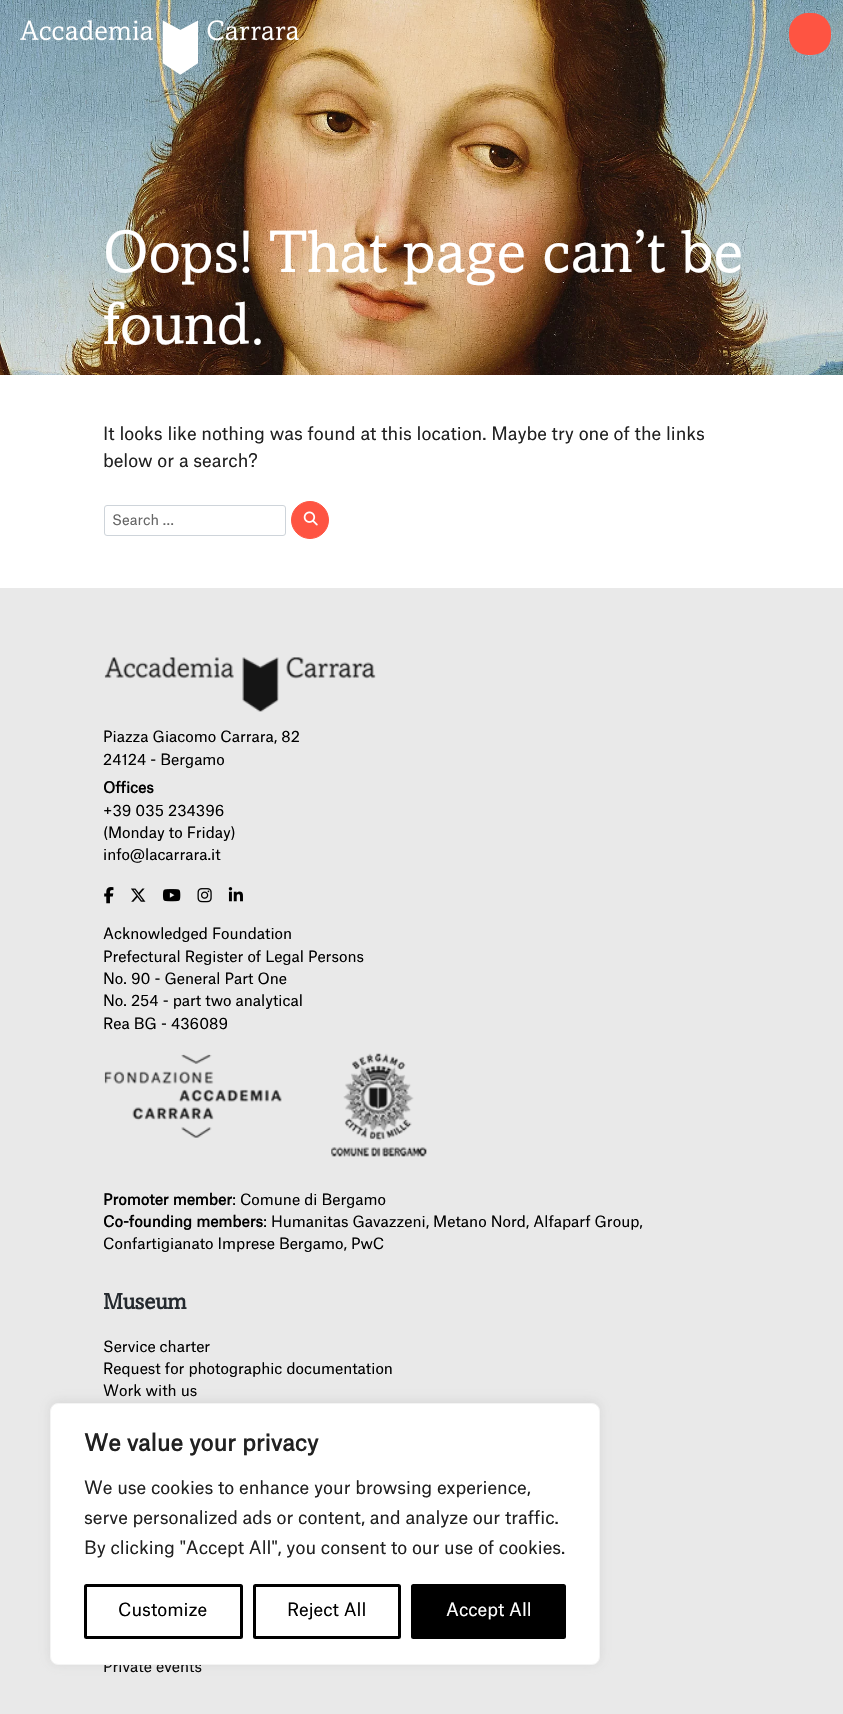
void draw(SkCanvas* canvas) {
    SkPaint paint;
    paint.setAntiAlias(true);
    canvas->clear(0xFFFFFFFF);
    canvas->drawImageRect(SkImages::DeferredFromEncodedData(SkData::MakeFromFileName("img2.png")), SkRect::MakeXYWH(0, 0, 843, 375), SkSamplingOptions());
    canvas->drawImageRect(SkImages::DeferredFromEncodedData(SkData::MakeFromFileName("img1.png")), SkRect::MakeXYWH(20, 20, 279, 55), SkSamplingOptions());
    paint.setColor(0xFFFE5442);
    canvas->drawRoundRect(SkRect::MakeXYWH(789, 13, 42, 42), 19, 19, paint);
    SkFont font1(fontMgr->matchFamilyStyle("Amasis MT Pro", SkFontStyle::Normal()), 60);
    font1.setSubpixel(true);
    paint.setColor(0xFFFFFFFF);
    canvas->drawString("Oops! That page can’t be", 103, 272, font1, paint);
    canvas->drawString("found.", 103, 344, font1, paint);
    SkFont font2(fontMgr->matchFamilyStyle("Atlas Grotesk", SkFontStyle::Normal()), 17.5f);
    font2.setSubpixel(true);
    paint.setColor(0xFF212121);
    canvas->drawString("It looks like nothing was found at this location. Maybe try one of the links", 103, 440, font2, paint);
    canvas->drawString("below or a search?", 103, 467, font2, paint);
    paint.setStyle(SkPaint::kStroke_Style);
    paint.setStrokeWidth(1);
    paint.setColor(0xFFCED4DA);
    canvas->drawRoundRect(SkRect::MakeXYWH(104.5f, 505.5f, 181, 30), 2.5f, 2.5f, paint);
    SkFont font3(fontMgr->matchFamilyStyle("Atlas Grotesk", SkFontStyle::Normal()), 14);
    font3.setSubpixel(true);
    paint.setStyle(SkPaint::kFill_Style);
    paint.setColor(0xFF666666);
    canvas->drawString("Search …", 112, 525, font3, paint);
    paint.setColor(0xFFFE5442);
    canvas->drawCircle(310, 520, 18.5f, paint);
    paint.setStyle(SkPaint::kStroke_Style);
    canvas->drawCircle(310, 520, 18.5f, paint);
    canvas->drawImageRect(SkImages::DeferredFromEncodedData(SkData::MakeFromFileName("img3.png")), SkRect::MakeXYWH(303, 511, 15, 15), SkSamplingOptions());
    paint.setStyle(SkPaint::kFill_Style);
    paint.setColor(0xFFE9E9E9);
    canvas->drawRect(SkRect::MakeXYWH(0, 588, 843, 1126), paint);
    canvas->drawImageRect(SkImages::DeferredFromEncodedData(SkData::MakeFromFileName("img4.png")), SkRect::MakeXYWH(104, 657, 272, 55), SkSamplingOptions());
    SkFont font4(fontMgr->matchFamilyStyle("Atlas Grotesk", SkFontStyle::Normal()), 14.9f);
    font4.setSubpixel(true);
    paint.setColor(0xFF000000);
    canvas->drawString("Piazza Giacomo Carrara, 82", 103, 742, font4, paint);
    canvas->drawString("24124 - Bergamo", 103, 765, font4, paint);
    SkFont font5(fontMgr->matchFamilyStyle("Atlas Grotesk", SkFontStyle::Bold()), 14.9f);
    font5.setSubpixel(true);
    canvas->drawString("Offices", 103, 793, font5, paint);
    canvas->drawString("+39 035 234396", 103, 816, font4, paint);
    canvas->drawString("(Monday to Friday)", 103, 838, font4, paint);
    canvas->drawString("info@lacarrara.it", 103, 860, font4, paint);
    canvas->drawImageRect(SkImages::DeferredFromEncodedData(SkData::MakeFromFileName("img5.png")), SkRect::MakeXYWH(104, 887, 10, 17), SkSamplingOptions());
    canvas->drawImageRect(SkImages::DeferredFromEncodedData(SkData::MakeFromFileName("img6.png")), SkRect::MakeXYWH(131, 888, 15, 14), SkSamplingOptions());
    canvas->drawImageRect(SkImages::DeferredFromEncodedData(SkData::MakeFromFileName("img7.png")), SkRect::MakeXYWH(162, 889, 19, 13), SkSamplingOptions());
    canvas->drawImageRect(SkImages::DeferredFromEncodedData(SkData::MakeFromFileName("img8.png")), SkRect::MakeXYWH(197, 888, 15, 15), SkSamplingOptions());
    canvas->drawImageRect(SkImages::DeferredFromEncodedData(SkData::MakeFromFileName("img9.png")), SkRect::MakeXYWH(228, 887, 15, 15), SkSamplingOptions());
    canvas->drawString("Acknowledged Foundation", 103, 939, font4, paint);
    canvas->drawString("Prefectural Register of Legal Persons", 103, 962, font4, paint);
    canvas->drawString("No. 90 - General Part One", 103, 984, font4, paint);
    canvas->drawString("No. 254 - part two analytical", 103, 1006, font4, paint);
    canvas->drawString("Rea BG - 436089", 103, 1029, font4, paint);
    canvas->drawImageRect(SkImages::DeferredFromEncodedData(SkData::MakeFromFileName("img10.png")), SkRect::MakeXYWH(104, 1054, 178, 84), SkSamplingOptions());
    canvas->drawImageRect(SkImages::DeferredFromEncodedData(SkData::MakeFromFileName("img11.png")), SkRect::MakeXYWH(331, 1053, 96, 104), SkSamplingOptions());
    canvas->drawString("Promoter member", 103, 1205, font5, paint);
    canvas->drawString(": Comune di Bergamo", 232, 1205, font4, paint);
    canvas->drawString("Co-founding members", 103, 1227, font5, paint);
    canvas->drawString(": Humanitas Gavazzeni, Metano Nord, Alfaparf Group,", 263, 1227, font4, paint);
    canvas->drawString("Confartigianato Imprese Bergamo, PwC", 103, 1249, font4, paint);
    SkFont font6(fontMgr->matchFamilyStyle("Amasis MT Pro", SkFontStyle::Bold()), 22.5f);
    font6.setSubpixel(true);
    paint.setColor(0xFF24292E);
    canvas->drawString("Museum", 103, 1309, font6, paint);
    paint.setColor(0xFF000000);
    canvas->drawString("Service charter", 103, 1352, font4, paint);
    canvas->drawString("Request for photographic documentation", 103, 1374, font4, paint);
    canvas->drawString("Work with us", 103, 1396, font4, paint);
    canvas->drawString("Private events", 103, 1672, font4, paint);
    paint.setColor(0x4DACABAB);
    paint.setMaskFilter(SkMaskFilter::MakeBlur(kNormal_SkBlurStyle, 6));
    canvas->drawRoundRect(SkRect::MakeXYWH(50, 1401, 550, 263), 8, 8, paint);
    paint.setMaskFilter(nullptr);
    paint.setColor(0xFFFFFFFF);
    canvas->drawRoundRect(SkRect::MakeXYWH(50.5f, 1403.5f, 549, 261), 7.5f, 7.5f, paint);
    paint.setStyle(SkPaint::kStroke_Style);
    paint.setColor(0xFFF4F4F4);
    canvas->drawRoundRect(SkRect::MakeXYWH(50.5f, 1403.5f, 549, 261), 7.5f, 7.5f, paint);
    SkFont font7(fontMgr->matchFamilyStyle("Atlas Grotesk", SkFontStyle::Bold()), 22.5f);
    font7.setSubpixel(true);
    paint.setStyle(SkPaint::kFill_Style);
    paint.setColor(0xFF212121);
    canvas->drawString("We value your privacy", 84, 1451, font7, paint);
    canvas->drawString("We use cookies to enhance your browsing experience,", 84, 1494, font2, paint);
    canvas->drawString("serve personalized ads or content, and analyze our traffic.", 84, 1524, font2, paint);
    canvas->drawString("By clicking \"Accept All\", you consent to our use of cookies.", 84, 1554, font2, paint);
    paint.setStyle(SkPaint::kStroke_Style);
    paint.setStrokeWidth(3);
    paint.setColor(0xFF000000);
    canvas->drawRoundRect(SkRect::MakeXYWH(85.5f, 1585.5f, 156, 52), 1, 1, paint);
    paint.setStyle(SkPaint::kFill_Style);
    canvas->drawString("Customize", 118, 1616, font2, paint);
    paint.setStyle(SkPaint::kStroke_Style);
    canvas->drawRoundRect(SkRect::MakeXYWH(254.5f, 1585.5f, 145, 52), 1, 1, paint);
    paint.setStyle(SkPaint::kFill_Style);
    canvas->drawString("Reject All", 287, 1616, font2, paint);
    canvas->drawRoundRect(SkRect::MakeXYWH(412.5f, 1585.5f, 152, 52), 1, 1, paint);
    paint.setStyle(SkPaint::kStroke_Style);
    canvas->drawRoundRect(SkRect::MakeXYWH(412.5f, 1585.5f, 152, 52), 1, 1, paint);
    paint.setStyle(SkPaint::kFill_Style);
    paint.setColor(0xFFFFFFFF);
    canvas->drawString("Accept All", 446, 1616, font2, paint);
}
